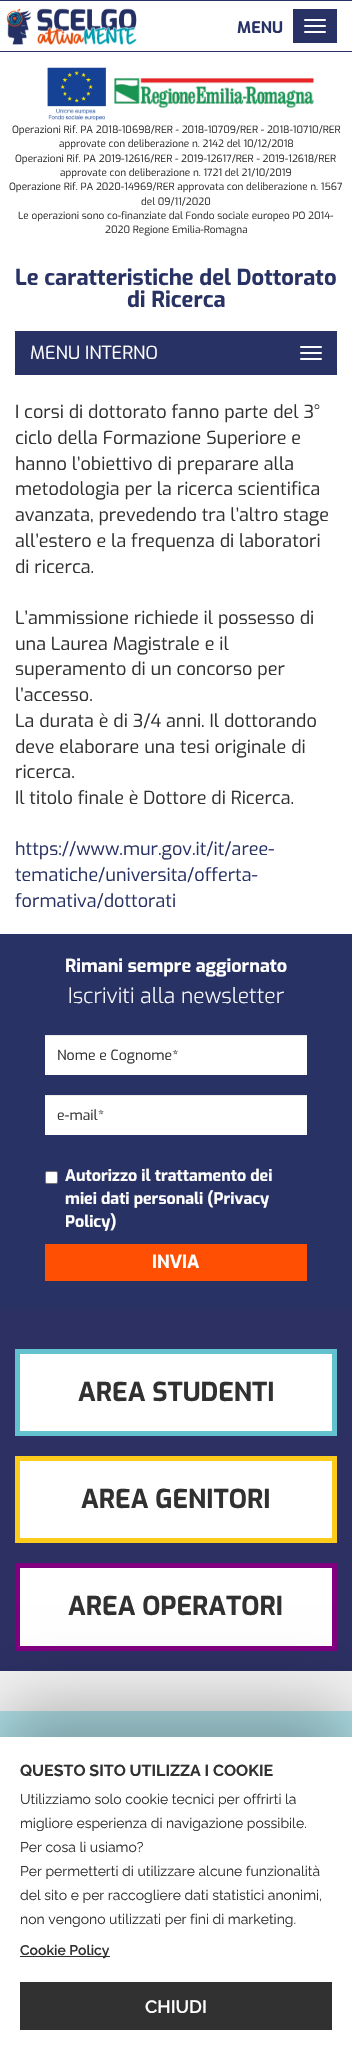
void draw(SkCanvas* canvas) {
    SkPaint paint;
    paint.setAntiAlias(true);
    canvas->clear(0xFFFFFFFF);
    paint.setColor(0xFF283264);
    canvas->drawRect(SkRect::MakeXYWH(0, 0, 352, 1), paint);
    canvas->drawRect(SkRect::MakeXYWH(0, 51, 352, 1), paint);
    canvas->drawImageRect(SkImages::DeferredFromEncodedData(SkData::MakeFromFileName("img1.png")), SkRect::MakeXYWH(6, 8, 131, 37), SkSamplingOptions());
    SkFont font1(fontMgr->matchFamilyStyle("Exo", SkFontStyle::Bold()), 16);
    font1.setSubpixel(true);
    canvas->drawString("MENU", 237, 33, font1, paint);
    canvas->drawRect(SkRect::MakeXYWH(293, 9, 44, 34), paint);
    paint.setColor(0xFFFFFFFF);
    canvas->drawRoundRect(SkRect::MakeXYWH(304, 19, 22, 2), 1, 1, paint);
    canvas->drawRoundRect(SkRect::MakeXYWH(304, 25, 22, 2), 1, 1, paint);
    canvas->drawRoundRect(SkRect::MakeXYWH(304, 31, 22, 2), 1, 1, paint);
    canvas->drawImageRect(SkImages::DeferredFromEncodedData(SkData::MakeFromFileName("img2.png")), SkRect::MakeXYWH(47, 67, 59, 54), SkSamplingOptions());
    canvas->drawImageRect(SkImages::DeferredFromEncodedData(SkData::MakeFromFileName("img3.png")), SkRect::MakeXYWH(114, 78, 200, 30), SkSamplingOptions());
    SkFont font2(fontMgr->matchFamilyStyle("Exo", SkFontStyle::Normal()), 10);
    font2.setSubpixel(true);
    paint.setColor(0xFF313131);
    canvas->drawString("Operazioni Rif. PA 2018-10698/RER - 2018-10709/RER - 2018-10710/RER", 12, 133, font2, paint);
    canvas->drawString("approvate con deliberazione n. 2142 del 10/12/2018", 59, 147, font2, paint);
    canvas->drawString("Operazioni Rif. PA 2019-12616/RER - 2019-12617/RER - 2019-12618/RER", 15, 162, font2, paint);
    canvas->drawString("approvate con deliberazione n. 1721 del 21/10/2019", 60, 176, font2, paint);
    canvas->drawString("Operazione Rif. PA 2020-14969/RER approvata con deliberazione n. 1567", 9, 190, font2, paint);
    canvas->drawString("del 09/11/2020", 141, 205, font2, paint);
    canvas->drawString("Le operazioni sono co-finanziate dal Fondo sociale europeo PO 2014-", 18, 219, font2, paint);
    canvas->drawString("2020 Regione Emilia-Romagna", 105, 233, font2, paint);
    SkFont font3(fontMgr->matchFamilyStyle("Exo", SkFontStyle::Bold()), 22);
    font3.setSubpixel(true);
    paint.setColor(0xFF283264);
    canvas->drawString("Le caratteristiche del Dottorato", 15, 285, font3, paint);
    canvas->drawString("di Ricerca", 127, 307, font3, paint);
    canvas->drawRect(SkRect::MakeXYWH(15, 331, 322, 44), paint);
    SkFont font4(fontMgr->matchFamilyStyle("Exo", SkFontStyle::Normal()), 18);
    font4.setSubpixel(true);
    paint.setColor(0xFFFFFFFF);
    canvas->drawString("MENU INTERNO", 30, 359, font4, paint);
    canvas->drawRoundRect(SkRect::MakeXYWH(300, 346, 22, 2), 1, 1, paint);
    canvas->drawRoundRect(SkRect::MakeXYWH(300, 352, 22, 2), 1, 1, paint);
    canvas->drawRoundRect(SkRect::MakeXYWH(300, 358, 22, 2), 1, 1, paint);
    paint.setColor(0xFF313131);
    canvas->drawString("I corsi di dottorato fanno parte del 3°", 15, 418, font4, paint);
    canvas->drawString("ciclo della Formazione Superiore e", 15, 444, font4, paint);
    canvas->drawString("hanno l’obiettivo di preparare alla", 15, 470, font4, paint);
    canvas->drawString("metodologia per la ricerca scientifica", 15, 495, font4, paint);
    canvas->drawString("avanzata, prevedendo tra l’altro stage", 15, 521, font4, paint);
    canvas->drawString("all’estero e la frequenza di laboratori", 15, 547, font4, paint);
    canvas->drawString("di ricerca.", 15, 573, font4, paint);
    canvas->drawString("L’ammissione richiede il possesso di", 15, 624, font4, paint);
    canvas->drawString("una Laurea Magistrale e il", 15, 650, font4, paint);
    canvas->drawString("superamento di un concorso per", 15, 675, font4, paint);
    canvas->drawString("l’accesso.", 15, 701, font4, paint);
    canvas->drawString("La durata è di 3/4 anni. Il dottorando", 15, 727, font4, paint);
    canvas->drawString("deve elaborare una tesi originale di", 15, 753, font4, paint);
    canvas->drawString("ricerca.", 15, 778, font4, paint);
    canvas->drawString("Il titolo finale è Dottore di Ricerca.", 15, 804, font4, paint);
    paint.setColor(0xFF283264);
    canvas->drawString("https://www.mur.gov.it/it/aree-", 15, 855, font4, paint);
    canvas->drawString("tematiche/universita/offerta-", 15, 881, font4, paint);
    canvas->drawString("formativa/dottorati", 15, 907, font4, paint);
    paint.setColor(0xFFB0E1E8);
    canvas->drawRect(SkRect::MakeXYWH(0, 1711, 352, 26), paint);
    paint.setColor(0xFF2C3063);
    canvas->drawRect(SkRect::MakeXYWH(0, 1309, 352, 362), paint);
    paint.setColor(0xFF283264);
    canvas->drawRect(SkRect::MakeXYWH(0, 934, 352, 375), paint);
    SkFont font5(fontMgr->matchFamilyStyle("Exo", SkFontStyle::Bold()), 18);
    font5.setSubpixel(true);
    paint.setColor(0xFFFFFFFF);
    canvas->drawString("Rimani sempre aggiornato", 65, 972, font5, paint);
    SkFont font6(fontMgr->matchFamilyStyle("Exo", SkFontStyle(300, SkFontStyle::kNormal_Width, SkFontStyle::kUpright_Slant)), 21);
    font6.setSubpixel(true);
    canvas->drawString("Iscriviti alla newsletter", 68, 1003, font6, paint);
    canvas->drawRect(SkRect::MakeXYWH(45, 1036, 262, 39), paint);
    paint.setColor(0xFFECECEC);
    canvas->drawRect(SkRect::MakeXYWH(45, 1035, 262, 1), paint);
    SkFont font7(fontMgr->matchFamilyStyle("Exo", SkFontStyle::Normal()), 14);
    font7.setSubpixel(true);
    paint.setColor(0xFF313131);
    canvas->drawString("Nome e Cognome*", 57, 1060, font7, paint);
    paint.setColor(0xFFFFFFFF);
    canvas->drawRect(SkRect::MakeXYWH(45, 1096, 262, 39), paint);
    paint.setColor(0xFFECECEC);
    canvas->drawRect(SkRect::MakeXYWH(45, 1095, 262, 1), paint);
    paint.setColor(0xFF313131);
    canvas->drawString("e-mail*", 57, 1120, font7, paint);
    paint.setColor(0xFFFFFFFF);
    canvas->drawRoundRect(SkRect::MakeXYWH(45.5f, 1171.5f, 12, 12), 1.5f, 1.5f, paint);
    paint.setStyle(SkPaint::kStroke_Style);
    paint.setStrokeWidth(1);
    paint.setColor(0xFF767676);
    canvas->drawRoundRect(SkRect::MakeXYWH(45.5f, 1171.5f, 12, 12), 1.5f, 1.5f, paint);
    paint.setStyle(SkPaint::kFill_Style);
    paint.setColor(0xFFFFFFFF);
    canvas->drawString("Autorizzo il trattamento dei", 65, 1181, font1, paint);
    canvas->drawString("miei dati personali (Privacy", 65, 1204, font1, paint);
    canvas->drawString("Policy)", 65, 1227, font1, paint);
    paint.setColor(0xFFFF4F02);
    canvas->drawRect(SkRect::MakeXYWH(45, 1244, 262, 37), paint);
    paint.setColor(0xFFFFFFFF);
    canvas->drawString("INVIA", 152, 1268, font5, paint);
    canvas->drawRect(SkRect::MakeXYWH(17.5f, 1351.5f, 317, 82), paint);
    paint.setStyle(SkPaint::kStroke_Style);
    paint.setStrokeWidth(5);
    paint.setColor(0xFF63C1D0);
    canvas->drawRect(SkRect::MakeXYWH(17.5f, 1351.5f, 317, 82), paint);
    SkFont font8(fontMgr->matchFamilyStyle("Exo", SkFontStyle::Bold()), 26);
    font8.setSubpixel(true);
    paint.setStyle(SkPaint::kFill_Style);
    paint.setColor(0xFF313131);
    canvas->drawString("AREA STUDENTI", 78, 1401, font8, paint);
    paint.setColor(0xFFFFFFFF);
    canvas->drawRect(SkRect::MakeXYWH(17.5f, 1458.5f, 317, 82), paint);
    paint.setStyle(SkPaint::kStroke_Style);
    paint.setColor(0xFFFDCB1B);
    canvas->drawRect(SkRect::MakeXYWH(17.5f, 1458.5f, 317, 82), paint);
    paint.setStyle(SkPaint::kFill_Style);
    paint.setColor(0xFF313131);
    canvas->drawString("AREA GENITORI", 81, 1508, font8, paint);
    paint.setColor(0xFFFFFFFF);
    canvas->drawRect(SkRect::MakeXYWH(17.5f, 1565.5f, 317, 83), paint);
    paint.setStyle(SkPaint::kStroke_Style);
    paint.setColor(0xFF800080);
    canvas->drawRect(SkRect::MakeXYWH(17.5f, 1565.5f, 317, 83), paint);
    paint.setStyle(SkPaint::kFill_Style);
    paint.setColor(0xFF313131);
    canvas->drawString("AREA OPERATORI", 68, 1615, font8, paint);
    paint.setColor(0xFFF5F5F5);
    canvas->drawRect(SkRect::MakeXYWH(0, 1671, 352, 40), paint);
    paint.setColor(0x4D000000);
    paint.setMaskFilter(SkMaskFilter::MakeBlur(kNormal_SkBlurStyle, 35));
    canvas->drawRect(SkRect::MakeXYWH(0, 1707, 352, 313), paint);
    paint.setMaskFilter(nullptr);
    paint.setColor(0xFFFFFFFF);
    canvas->drawRect(SkRect::MakeXYWH(0, 1737, 352, 313), paint);
    SkFont font9(fontMgr->matchFamilyStyle("Raleway", SkFontStyle::Bold()), 16);
    font9.setSubpixel(true);
    paint.setColor(0xFF313131);
    canvas->drawString("QUESTO SITO UTILIZZA I COOKIE", 20, 1776, font9, paint);
    SkFont font10(fontMgr->matchFamilyStyle("Raleway", SkFontStyle::Normal()), 14);
    font10.setSubpixel(true);
    canvas->drawString("Utilizziamo solo cookie tecnici per offrirti la", 20, 1804, font10, paint);
    canvas->drawString("migliore esperienza di navigazione possibile.", 20, 1828, font10, paint);
    canvas->drawString("Per cosa li usiamo?", 20, 1852, font10, paint);
    canvas->drawString("Per permetterti di utilizzare alcune funzionalità", 20, 1876, font10, paint);
    canvas->drawString("del sito e per raccogliere dati statistici anonimi,", 20, 1900, font10, paint);
    canvas->drawString("non vengono utilizzati per fini di marketing.", 20, 1924, font10, paint);
    canvas->drawRect(SkRect::MakeXYWH(20, 1956, 90, 1), paint);
    SkFont font11(fontMgr->matchFamilyStyle("Raleway", SkFontStyle(600, SkFontStyle::kNormal_Width, SkFontStyle::kUpright_Slant)), 14);
    font11.setSubpixel(true);
    canvas->drawString("Cookie Policy", 20, 1955, font11, paint);
    canvas->drawRect(SkRect::MakeXYWH(20, 1982, 312, 48), paint);
    SkFont font12(fontMgr->matchFamilyStyle("Raleway", SkFontStyle(600, SkFontStyle::kNormal_Width, SkFontStyle::kUpright_Slant)), 18);
    font12.setSubpixel(true);
    paint.setColor(0xFFFFFFFF);
    canvas->drawString("CHIUDI", 145, 2013, font12, paint);
}
